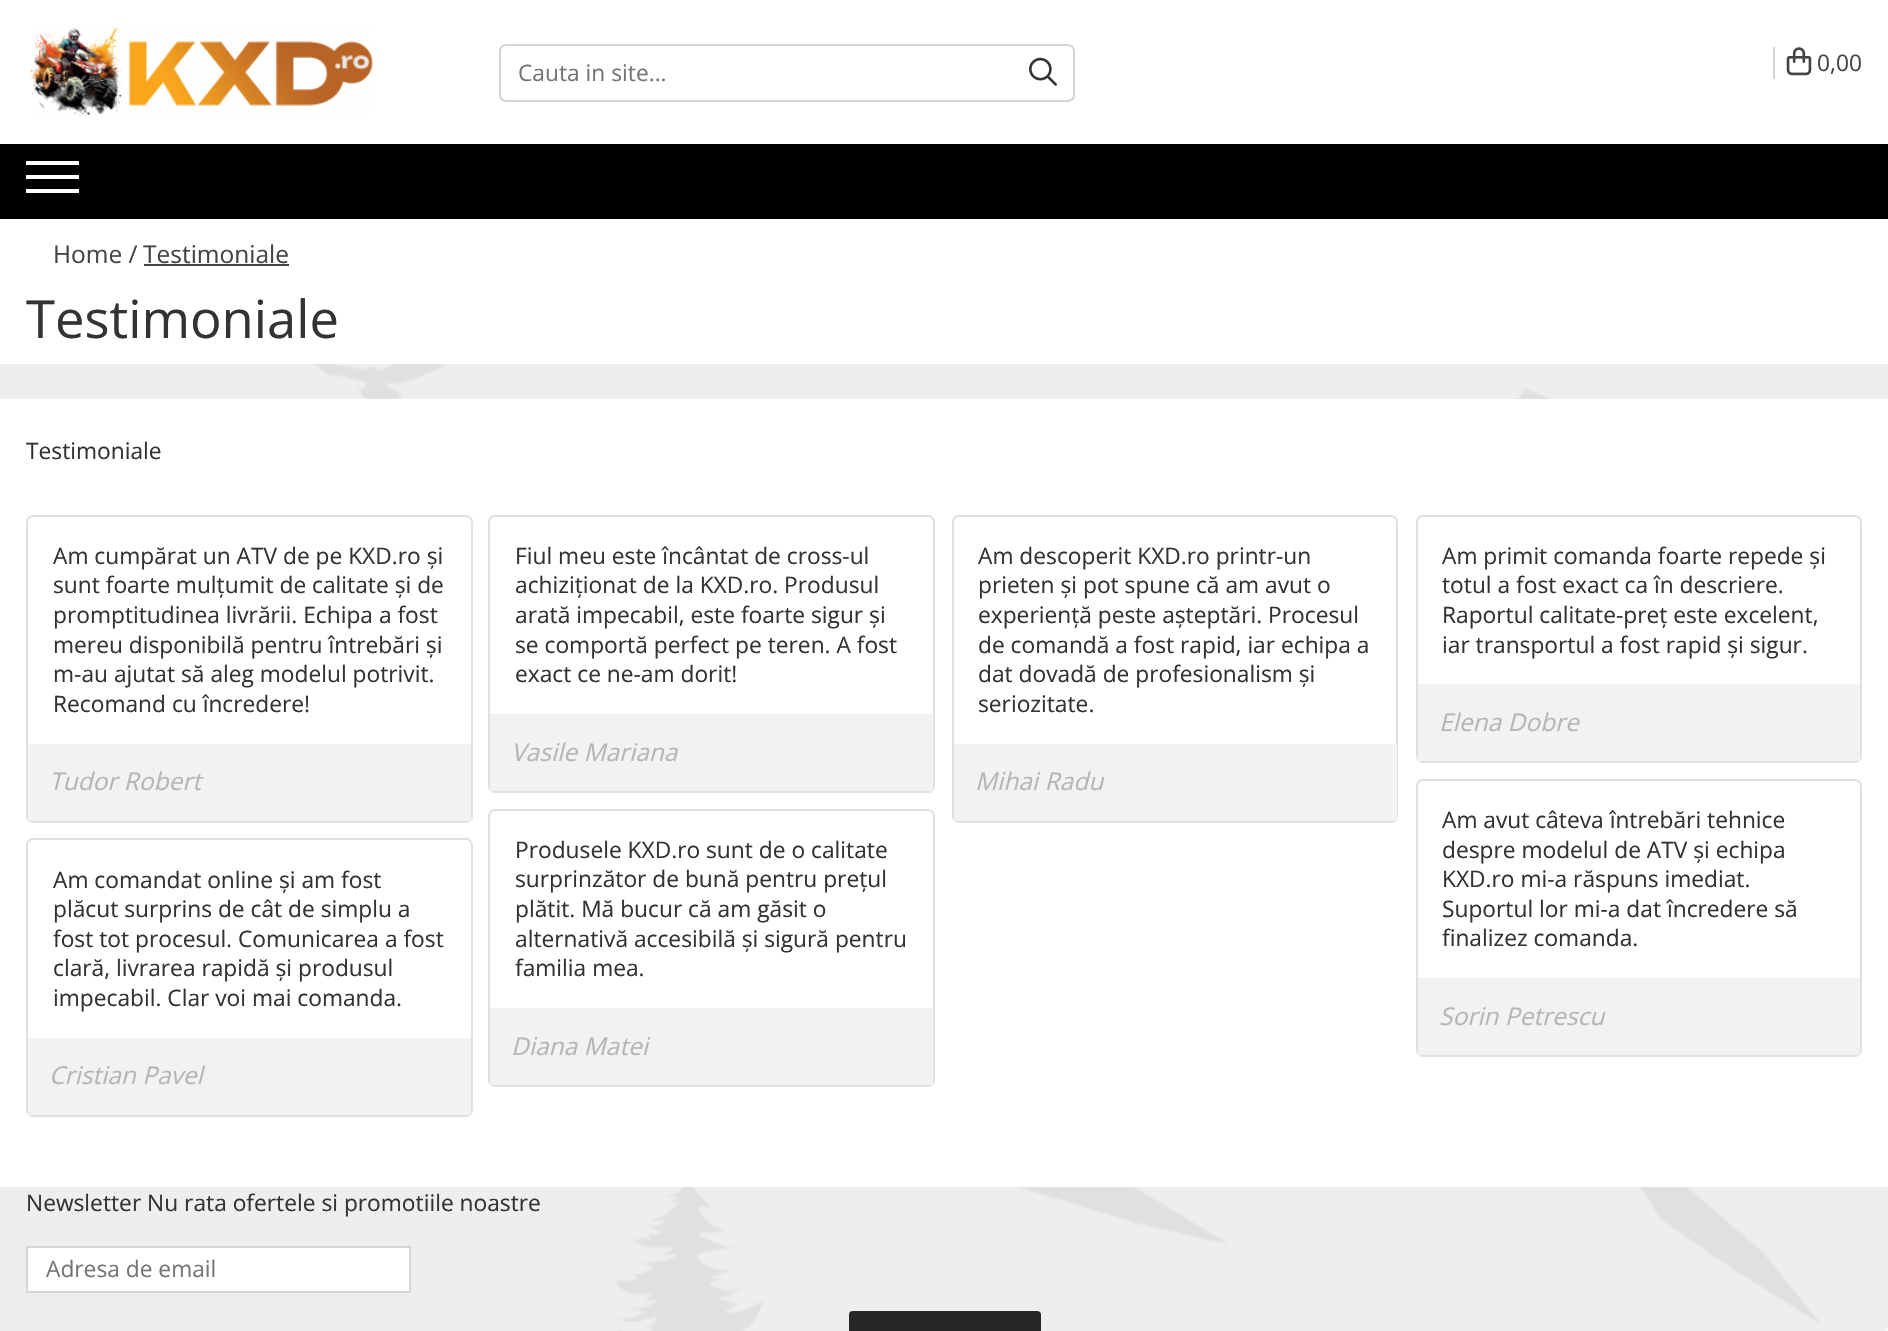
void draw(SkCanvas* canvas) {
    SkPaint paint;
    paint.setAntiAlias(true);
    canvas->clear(0xFFFFFFFF);
    canvas->drawImageRect(SkImages::DeferredFromEncodedData(SkData::MakeFromFileName("img1.png")), SkRect::MakeXYWH(0, 364, 1888, 967), SkSamplingOptions());
    canvas->drawImageRect(SkImages::DeferredFromEncodedData(SkData::MakeFromFileName("img2.png")), SkRect::MakeXYWH(30, 27, 343, 91), SkSamplingOptions());
    paint.setStyle(SkPaint::kStroke_Style);
    paint.setStrokeWidth(2);
    paint.setColor(0xFFD5D5D5);
    canvas->drawRoundRect(SkRect::MakeXYWH(500, 45, 574, 56), 6, 6, paint);
    SkFont font1(fontMgr->matchFamilyStyle("Open Sans", SkFontStyle::Normal()), 22.75f);
    font1.setSubpixel(true);
    paint.setStyle(SkPaint::kFill_Style);
    paint.setColor(0xFF757575);
    canvas->drawString("Cauta in site...", 518, 81, font1, paint);
    canvas->drawImageRect(SkImages::DeferredFromEncodedData(SkData::MakeFromFileName("img3.png")), SkRect::MakeXYWH(1029, 57, 28, 29), SkSamplingOptions());
    paint.setColor(0xFFD5D5D5);
    canvas->drawRect(SkRect::MakeXYWH(1773, 47, 2, 32), paint);
    canvas->drawImageRect(SkImages::DeferredFromEncodedData(SkData::MakeFromFileName("img4.png")), SkRect::MakeXYWH(1786, 47, 26, 29), SkSamplingOptions());
    paint.setColor(0xFF444444);
    canvas->drawString("0,00", 1817, 71, font1, paint);
    paint.setColor(0xFF000000);
    canvas->drawRect(SkRect::MakeXYWH(0, 144, 1888, 75), paint);
    paint.setColor(0xFFFFFFFF);
    canvas->drawRect(SkRect::MakeXYWH(26, 175, 53, 4), paint);
    canvas->drawRect(SkRect::MakeXYWH(26, 161, 53, 4), paint);
    canvas->drawRect(SkRect::MakeXYWH(26, 189, 53, 4), paint);
    SkFont font2(fontMgr->matchFamilyStyle("Open Sans", SkFontStyle::Normal()), 24.5f);
    font2.setSubpixel(true);
    paint.setColor(0xFF444444);
    canvas->drawString("Home /", 53, 263, font2, paint);
    canvas->drawString("Testimoniale", 143, 263, font2, paint);
    canvas->drawRect(SkRect::MakeXYWH(144, 264, 145, 2), paint);
    SkFont font3(fontMgr->matchFamilyStyle("Open Sans", SkFontStyle::Normal()), 52.5f);
    font3.setSubpixel(true);
    paint.setColor(0xFF333333);
    canvas->drawString("Testimoniale", 26, 338, font3, paint);
    paint.setColor(0xFFFFFFFF);
    canvas->drawRect(SkRect::MakeXYWH(0, 399, 1888, 788), paint);
    paint.setColor(0xFF333333);
    canvas->drawString("Testimoniale", 26, 459, font1, paint);
    paint.setStyle(SkPaint::kStroke_Style);
    paint.setColor(0xFFE0E0E0);
    canvas->drawRoundRect(SkRect::MakeXYWH(27, 516, 445, 306), 6, 6, paint);
    paint.setStyle(SkPaint::kFill_Style);
    paint.setColor(0xFF333333);
    canvas->drawString("Am cumpărat un ATV de pe KXD.ro și", 53, 564, font1, paint);
    canvas->drawString("sunt foarte mulțumit de calitate și de", 53, 593, font1, paint);
    canvas->drawString("promptitudinea livrării. Echipa a fost", 53, 623, font1, paint);
    canvas->drawString("mereu disponibilă pentru întrebări și", 53, 653, font1, paint);
    canvas->drawString("m-au ajutat să aleg modelul potrivit.", 53, 682, font1, paint);
    canvas->drawString("Recomand cu încredere!", 53, 712, font1, paint);
    paint.setColor(0xFFF2F2F2);
    canvas->drawRect(SkRect::MakeXYWH(28, 744, 443, 77), paint);
    SkFont font4(fontMgr->matchFamilyStyle("Open Sans", SkFontStyle::Italic()), 24.5f);
    font4.setSubpixel(true);
    paint.setColor(0xFFB5B5B5);
    canvas->drawString("Tudor Robert", 49, 790, font4, paint);
    paint.setStyle(SkPaint::kStroke_Style);
    paint.setColor(0xFFE0E0E0);
    canvas->drawRoundRect(SkRect::MakeXYWH(489, 516, 445, 276), 6, 6, paint);
    paint.setStyle(SkPaint::kFill_Style);
    paint.setColor(0xFF333333);
    canvas->drawString("Fiul meu este încântat de cross-ul", 515, 564, font1, paint);
    canvas->drawString("achiziționat de la KXD.ro. Produsul", 515, 593, font1, paint);
    canvas->drawString("arată impecabil, este foarte sigur și", 515, 623, font1, paint);
    canvas->drawString("se comportă perfect pe teren. A fost", 515, 653, font1, paint);
    canvas->drawString("exact ce ne-am dorit!", 515, 682, font1, paint);
    paint.setColor(0xFFF2F2F2);
    canvas->drawRect(SkRect::MakeXYWH(490, 714, 443, 77), paint);
    paint.setColor(0xFFB5B5B5);
    canvas->drawString("Vasile Mariana", 511, 761, font4, paint);
    paint.setStyle(SkPaint::kStroke_Style);
    paint.setColor(0xFFE0E0E0);
    canvas->drawRoundRect(SkRect::MakeXYWH(953, 516, 444, 306), 6, 6, paint);
    paint.setStyle(SkPaint::kFill_Style);
    paint.setColor(0xFF333333);
    canvas->drawString("Am descoperit KXD.ro printr-un", 978, 564, font1, paint);
    canvas->drawString("prieten și pot spune că am avut o", 978, 593, font1, paint);
    canvas->drawString("experiență peste așteptări. Procesul", 978, 623, font1, paint);
    canvas->drawString("de comandă a fost rapid, iar echipa a", 978, 653, font1, paint);
    canvas->drawString("dat dovadă de profesionalism și", 978, 682, font1, paint);
    canvas->drawString("seriozitate.", 978, 712, font1, paint);
    paint.setColor(0xFFF2F2F2);
    canvas->drawRect(SkRect::MakeXYWH(954, 744, 443, 77), paint);
    paint.setColor(0xFFB5B5B5);
    canvas->drawString("Mihai Radu", 975, 790, font4, paint);
    paint.setStyle(SkPaint::kStroke_Style);
    paint.setColor(0xFFE0E0E0);
    canvas->drawRoundRect(SkRect::MakeXYWH(1417, 516, 444, 246), 6, 6, paint);
    paint.setStyle(SkPaint::kFill_Style);
    paint.setColor(0xFF333333);
    canvas->drawString("Am primit comanda foarte repede și", 1442, 564, font1, paint);
    canvas->drawString("totul a fost exact ca în descriere.", 1442, 593, font1, paint);
    canvas->drawString("Raportul calitate-preț este excelent,", 1442, 623, font1, paint);
    canvas->drawString("iar transportul a fost rapid și sigur.", 1442, 653, font1, paint);
    paint.setColor(0xFFF2F2F2);
    canvas->drawRect(SkRect::MakeXYWH(1418, 684, 442, 77), paint);
    paint.setColor(0xFFB5B5B5);
    canvas->drawString("Elena Dobre", 1439, 731, font4, paint);
    paint.setStyle(SkPaint::kStroke_Style);
    paint.setColor(0xFFE0E0E0);
    canvas->drawRoundRect(SkRect::MakeXYWH(27, 839, 445, 277), 6, 6, paint);
    paint.setStyle(SkPaint::kFill_Style);
    paint.setColor(0xFF333333);
    canvas->drawString("Am comandat online și am fost", 53, 888, font1, paint);
    canvas->drawString("plăcut surprins de cât de simplu a", 53, 917, font1, paint);
    canvas->drawString("fost tot procesul. Comunicarea a fost", 53, 947, font1, paint);
    canvas->drawString("clară, livrarea rapidă și produsul", 53, 976, font1, paint);
    canvas->drawString("impecabil. Clar voi mai comanda.", 53, 1006, font1, paint);
    paint.setColor(0xFFF2F2F2);
    canvas->drawRect(SkRect::MakeXYWH(28, 1038, 443, 77), paint);
    paint.setColor(0xFFB5B5B5);
    canvas->drawString("Cristian Pavel", 49, 1084, font4, paint);
    paint.setStyle(SkPaint::kStroke_Style);
    paint.setColor(0xFFE0E0E0);
    canvas->drawRoundRect(SkRect::MakeXYWH(489, 810, 445, 276), 6, 6, paint);
    paint.setStyle(SkPaint::kFill_Style);
    paint.setColor(0xFF333333);
    canvas->drawString("Produsele KXD.ro sunt de o calitate", 515, 858, font1, paint);
    canvas->drawString("surprinzător de bună pentru prețul", 515, 887, font1, paint);
    canvas->drawString("plătit. Mă bucur că am găsit o", 515, 917, font1, paint);
    canvas->drawString("alternativă accesibilă și sigură pentru", 515, 947, font1, paint);
    canvas->drawString("familia mea.", 515, 976, font1, paint);
    paint.setColor(0xFFF2F2F2);
    canvas->drawRect(SkRect::MakeXYWH(490, 1008, 443, 77), paint);
    paint.setColor(0xFFB5B5B5);
    canvas->drawString("Diana Matei", 511, 1055, font4, paint);
    paint.setStyle(SkPaint::kStroke_Style);
    paint.setColor(0xFFE0E0E0);
    canvas->drawRoundRect(SkRect::MakeXYWH(1417, 780, 444, 276), 6, 6, paint);
    paint.setStyle(SkPaint::kFill_Style);
    paint.setColor(0xFF333333);
    canvas->drawString("Am avut câteva întrebări tehnice", 1442, 828, font1, paint);
    canvas->drawString("despre modelul de ATV și echipa", 1442, 858, font1, paint);
    canvas->drawString("KXD.ro mi-a răspuns imediat.", 1442, 887, font1, paint);
    canvas->drawString("Suportul lor mi-a dat încredere să", 1442, 917, font1, paint);
    canvas->drawString("finalizez comanda.", 1442, 946, font1, paint);
    paint.setColor(0xFFF2F2F2);
    canvas->drawRect(SkRect::MakeXYWH(1418, 978, 442, 77), paint);
    paint.setColor(0xFFB5B5B5);
    canvas->drawString("Sorin Petrescu", 1439, 1025, font4, paint);
    paint.setColor(0xFF333333);
    canvas->drawString("Newsletter Nu rata ofertele si promotiile noastre", 26, 1211, font1, paint);
    paint.setColor(0xFFFFFFFF);
    canvas->drawRect(SkRect::MakeXYWH(27, 1247, 383, 45), paint);
    paint.setStyle(SkPaint::kStroke_Style);
    paint.setColor(0xFFD5D5D5);
    canvas->drawRect(SkRect::MakeXYWH(27, 1247, 383, 45), paint);
    paint.setStyle(SkPaint::kFill_Style);
    paint.setColor(0xFF757575);
    canvas->drawString("Adresa de email", 46, 1277, font1, paint);
    paint.setColor(0xFF272727);
    canvas->drawRoundRect(SkRect::MakeXYWH(849, 1311, 192, 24), 4, 4, paint);
    paint.setColor(0xFFF5F5F5);
    canvas->drawRect(SkRect::MakeXYWH(1885, 1328, 3, 3), paint);
}
